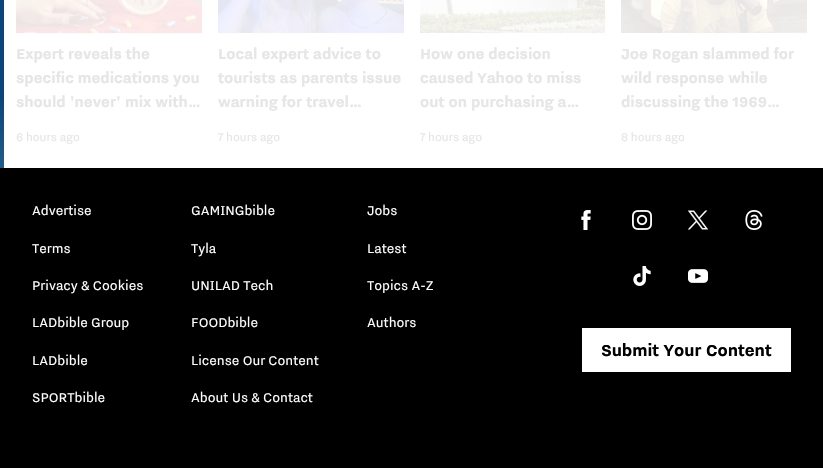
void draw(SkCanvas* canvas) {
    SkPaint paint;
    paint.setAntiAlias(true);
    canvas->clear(0xFFFFFFFF);
    {
        const SkColor colors[] = {0xFF0B457D, 0xFF83C2BF};
        const float stops[] = {0.21f, 1};
        const SkPoint ends[] = {{2, 0}, {2, 468}};
        paint.setShader(SkGradientShader::MakeLinear(ends, colors, stops, 2, SkTileMode::kClamp));
        paint.setAlpha(255);
    }
    canvas->drawRect(SkRect::MakeXYWH(0, 0, 4, 168), paint);
    canvas->drawImageRect(SkImages::DeferredFromEncodedData(SkData::MakeFromFileName("img1.png")), SkRect::MakeXYWH(16, 0, 186, 33), SkSamplingOptions());
    SkFont font1(fontMgr->matchFamilyStyle("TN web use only", SkFontStyle::Bold()), 18);
    font1.setSubpixel(true);
    paint.setShader(nullptr);
    paint.setColor(0xFFE6E6E6);
    canvas->drawString("Expert reveals the", 16, 59, font1, paint);
    canvas->drawString("specific medications you", 16, 83, font1, paint);
    canvas->drawString("should 'never' mix with…", 16, 107, font1, paint);
    SkFont font2(fontMgr->matchFamilyStyle("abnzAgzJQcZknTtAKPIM", SkFontStyle::Normal()), 14);
    font2.setSubpixel(true);
    canvas->drawString("6 hours ago", 16, 141, font2, paint);
    canvas->drawImageRect(SkImages::DeferredFromEncodedData(SkData::MakeFromFileName("img2.png")), SkRect::MakeXYWH(218, 0, 186, 33), SkSamplingOptions());
    canvas->drawString("Local expert advice to", 218, 59, font1, paint);
    canvas->drawString("tourists as parents issue", 218, 83, font1, paint);
    canvas->drawString("warning for travel…", 218, 107, font1, paint);
    canvas->drawString("7 hours ago", 218, 141, font2, paint);
    canvas->drawImageRect(SkImages::DeferredFromEncodedData(SkData::MakeFromFileName("img3.png")), SkRect::MakeXYWH(420, 0, 185, 33), SkSamplingOptions());
    canvas->drawString("How one decision", 420, 59, font1, paint);
    canvas->drawString("caused Yahoo to miss", 420, 83, font1, paint);
    canvas->drawString("out on purchasing a…", 420, 107, font1, paint);
    canvas->drawString("7 hours ago", 420, 141, font2, paint);
    canvas->drawImageRect(SkImages::DeferredFromEncodedData(SkData::MakeFromFileName("img4.png")), SkRect::MakeXYWH(621, 0, 186, 33), SkSamplingOptions());
    canvas->drawString("Joe Rogan slammed for", 621, 59, font1, paint);
    canvas->drawString("wild response while", 621, 83, font1, paint);
    canvas->drawString("discussing the 1969…", 621, 107, font1, paint);
    canvas->drawString("8 hours ago", 621, 141, font2, paint);
    paint.setColor(0xFF000000);
    canvas->drawRect(SkRect::MakeXYWH(0, 168, 823, 300), paint);
    SkFont font3(fontMgr->matchFamilyStyle("abnzAgzJQcZknTtAKPIM", SkFontStyle::Normal()), 16);
    font3.setSubpixel(true);
    paint.setColor(0xFFFFFFFF);
    canvas->drawString("Advertise", 32, 215, font3, paint);
    canvas->drawString("GAMINGbible", 191, 215, font3, paint);
    canvas->drawString("Jobs", 367, 215, font3, paint);
    canvas->drawString("Terms", 32, 253, font3, paint);
    canvas->drawString("Tyla", 191, 253, font3, paint);
    canvas->drawString("Latest", 367, 253, font3, paint);
    canvas->drawString("Privacy & Cookies", 32, 290, font3, paint);
    canvas->drawString("UNILAD Tech", 191, 290, font3, paint);
    canvas->drawString("Topics A-Z", 367, 290, font3, paint);
    canvas->drawString("LADbible Group", 32, 327, font3, paint);
    canvas->drawString("FOODbible", 191, 327, font3, paint);
    canvas->drawString("Authors", 367, 327, font3, paint);
    canvas->drawString("LADbible", 32, 365, font3, paint);
    canvas->drawString("License Our Content", 191, 365, font3, paint);
    canvas->drawString("SPORTbible", 32, 402, font3, paint);
    canvas->drawString("About Us & Contact", 191, 402, font3, paint);
    canvas->drawImageRect(SkImages::DeferredFromEncodedData(SkData::MakeFromFileName("img5.png")), SkRect::MakeXYWH(581, 210, 10, 20), SkSamplingOptions());
    canvas->drawImageRect(SkImages::DeferredFromEncodedData(SkData::MakeFromFileName("img6.png")), SkRect::MakeXYWH(632, 210, 20, 20), SkSamplingOptions());
    canvas->drawImageRect(SkImages::DeferredFromEncodedData(SkData::MakeFromFileName("img7.png")), SkRect::MakeXYWH(688, 210, 20, 20), SkSamplingOptions());
    canvas->drawImageRect(SkImages::DeferredFromEncodedData(SkData::MakeFromFileName("img8.png")), SkRect::MakeXYWH(745, 210, 18, 20), SkSamplingOptions());
    canvas->drawImageRect(SkImages::DeferredFromEncodedData(SkData::MakeFromFileName("img9.png")), SkRect::MakeXYWH(633, 266, 18, 20), SkSamplingOptions());
    canvas->drawImageRect(SkImages::DeferredFromEncodedData(SkData::MakeFromFileName("img10.png")), SkRect::MakeXYWH(688, 269, 20, 14), SkSamplingOptions());
    paint.setStyle(SkPaint::kStroke_Style);
    paint.setStrokeWidth(3);
    canvas->drawRect(SkRect::MakeXYWH(583.5f, 329.5f, 206, 41), paint);
    paint.setStyle(SkPaint::kFill_Style);
    canvas->drawRect(SkRect::MakeXYWH(585, 331, 203, 38), paint);
    SkFont font4(fontMgr->matchFamilyStyle("TN web use only", SkFontStyle::Bold()), 20);
    font4.setSubpixel(true);
    paint.setColor(0xFF000000);
    canvas->drawString("Submit Your Content", 601, 356, font4, paint);
}
